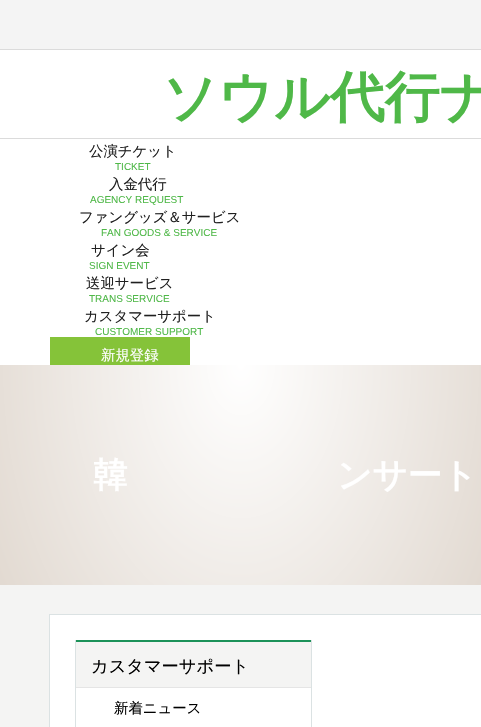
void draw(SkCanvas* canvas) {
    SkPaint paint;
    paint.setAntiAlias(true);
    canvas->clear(0xFFFFFFFF);
    {
        const SkColor colors[] = {0xFFFFFFFF, 0xFFDCD2C8};
        const float stops[] = {0, 1};
        SkMatrix m = SkMatrix::Translate(241, 364).preScale(340, 514);
        paint.setShader(SkGradientShader::MakeRadial({0, 0}, 1, colors, stops, 2, SkTileMode::kClamp, 0, &m));
        paint.setAlpha(255);
    }
    canvas->drawRect(SkRect::MakeXYWH(0, 365, 481, 220), paint);
    paint.setShader(nullptr);
    paint.setColor(0xFFF4F4F4);
    canvas->drawRect(SkRect::MakeXYWH(0, 0, 481, 49), paint);
    paint.setColor(0xFFDBDBDB);
    canvas->drawRect(SkRect::MakeXYWH(0, 49, 481, 1), paint);
    SkFont font1(fontMgr->matchFamilyStyle("WenQuanYi Zen Hei", SkFontStyle::Bold()), 54.75f);
    font1.setSubpixel(true);
    paint.setColor(0xFF4FB848);
    canvas->drawString("ソウル代行ナ", 162, 116, font1, paint);
    paint.setColor(0xFFDBDBDB);
    canvas->drawRect(SkRect::MakeXYWH(0, 138, 481, 1), paint);
    SkFont font2(fontMgr->matchFamilyStyle("WenQuanYi Zen Hei", SkFontStyle(500, SkFontStyle::kNormal_Width, SkFontStyle::kUpright_Slant)), 14.4f);
    font2.setSubpixel(true);
    paint.setColor(0xFF202020);
    canvas->drawString("公演チケット", 89, 156, font2, paint);
    SkFont font3(fontMgr->matchFamilyStyle("Liberation Sans", SkFontStyle::Normal()), 10);
    font3.setSubpixel(true);
    paint.setColor(0xFF4FB848);
    canvas->drawString("TICKET", 115, 170, font3, paint);
    paint.setColor(0xFF202020);
    canvas->drawString("入金代行", 109, 189, font2, paint);
    paint.setColor(0xFF4FB848);
    canvas->drawString("AGENCY REQUEST", 90, 203, font3, paint);
    paint.setColor(0xFF202020);
    canvas->drawString("ファングッズ＆サービス", 79, 222, font2, paint);
    paint.setColor(0xFF4FB848);
    canvas->drawString("FAN GOODS & SERVICE", 101, 236, font3, paint);
    paint.setColor(0xFF202020);
    canvas->drawString("サイン会", 91, 255, font2, paint);
    paint.setColor(0xFF4FB848);
    canvas->drawString("SIGN EVENT", 89, 269, font3, paint);
    paint.setColor(0xFF202020);
    canvas->drawString("送迎サービス", 86, 288, font2, paint);
    paint.setColor(0xFF4FB848);
    canvas->drawString("TRANS SERVICE", 89, 302, font3, paint);
    paint.setColor(0xFF202020);
    canvas->drawString("カスタマーサポート", 84, 321, font2, paint);
    paint.setColor(0xFF4FB848);
    canvas->drawString("CUSTOMER SUPPORT", 95, 335, font3, paint);
    paint.setColor(0xFF85C339);
    canvas->drawRect(SkRect::MakeXYWH(50, 337, 140, 28), paint);
    paint.setColor(0xFFFFFFFF);
    canvas->drawString("新規登録", 101, 360, font2, paint);
    SkFont font4(fontMgr->matchFamilyStyle("WenQuanYi Zen Hei", SkFontStyle::Bold()), 34.5f);
    font4.setSubpixel(true);
    canvas->drawString("韓", 93, 487, font4, paint);
    canvas->drawString("ンサート", 337, 487, font4, paint);
    paint.setColor(0xFFF4F4F3);
    canvas->drawRect(SkRect::MakeXYWH(0, 585, 481, 142), paint);
    paint.setColor(0xFFFFFFFF);
    canvas->drawRect(SkRect::MakeXYWH(49.5f, 614.5f, 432, 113), paint);
    paint.setStyle(SkPaint::kStroke_Style);
    paint.setStrokeWidth(1);
    paint.setColor(0xFFDBE2E3);
    canvas->drawRect(SkRect::MakeXYWH(49.5f, 614.5f, 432, 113), paint);
    paint.setStyle(SkPaint::kFill_Style);
    paint.setColor(0xFF1C9259);
    canvas->drawRect(SkRect::MakeXYWH(75, 640, 237, 1), paint);
    paint.setColor(0xFFDBE2E3);
    canvas->drawRect(SkRect::MakeXYWH(311, 640, 1, 87), paint);
    canvas->drawRect(SkRect::MakeXYWH(75, 640, 1, 87), paint);
    paint.setColor(0xFFF4F4F3);
    canvas->drawRect(SkRect::MakeXYWH(76, 642, 235, 45), paint);
    paint.setColor(0xFF1C9259);
    canvas->drawRect(SkRect::MakeXYWH(76, 641, 235, 1), paint);
    paint.setColor(0xFFE5E5E5);
    canvas->drawRect(SkRect::MakeXYWH(76, 687, 235, 1), paint);
    SkFont font5(fontMgr->matchFamilyStyle("WenQuanYi Zen Hei", SkFontStyle(500, SkFontStyle::kNormal_Width, SkFontStyle::kUpright_Slant)), 17.25f);
    font5.setSubpixel(true);
    paint.setColor(0xFF000000);
    canvas->drawString("カスタマーサポート", 91, 672, font5, paint);
    canvas->drawString("新着ニュース", 114, 713, font2, paint);
}
